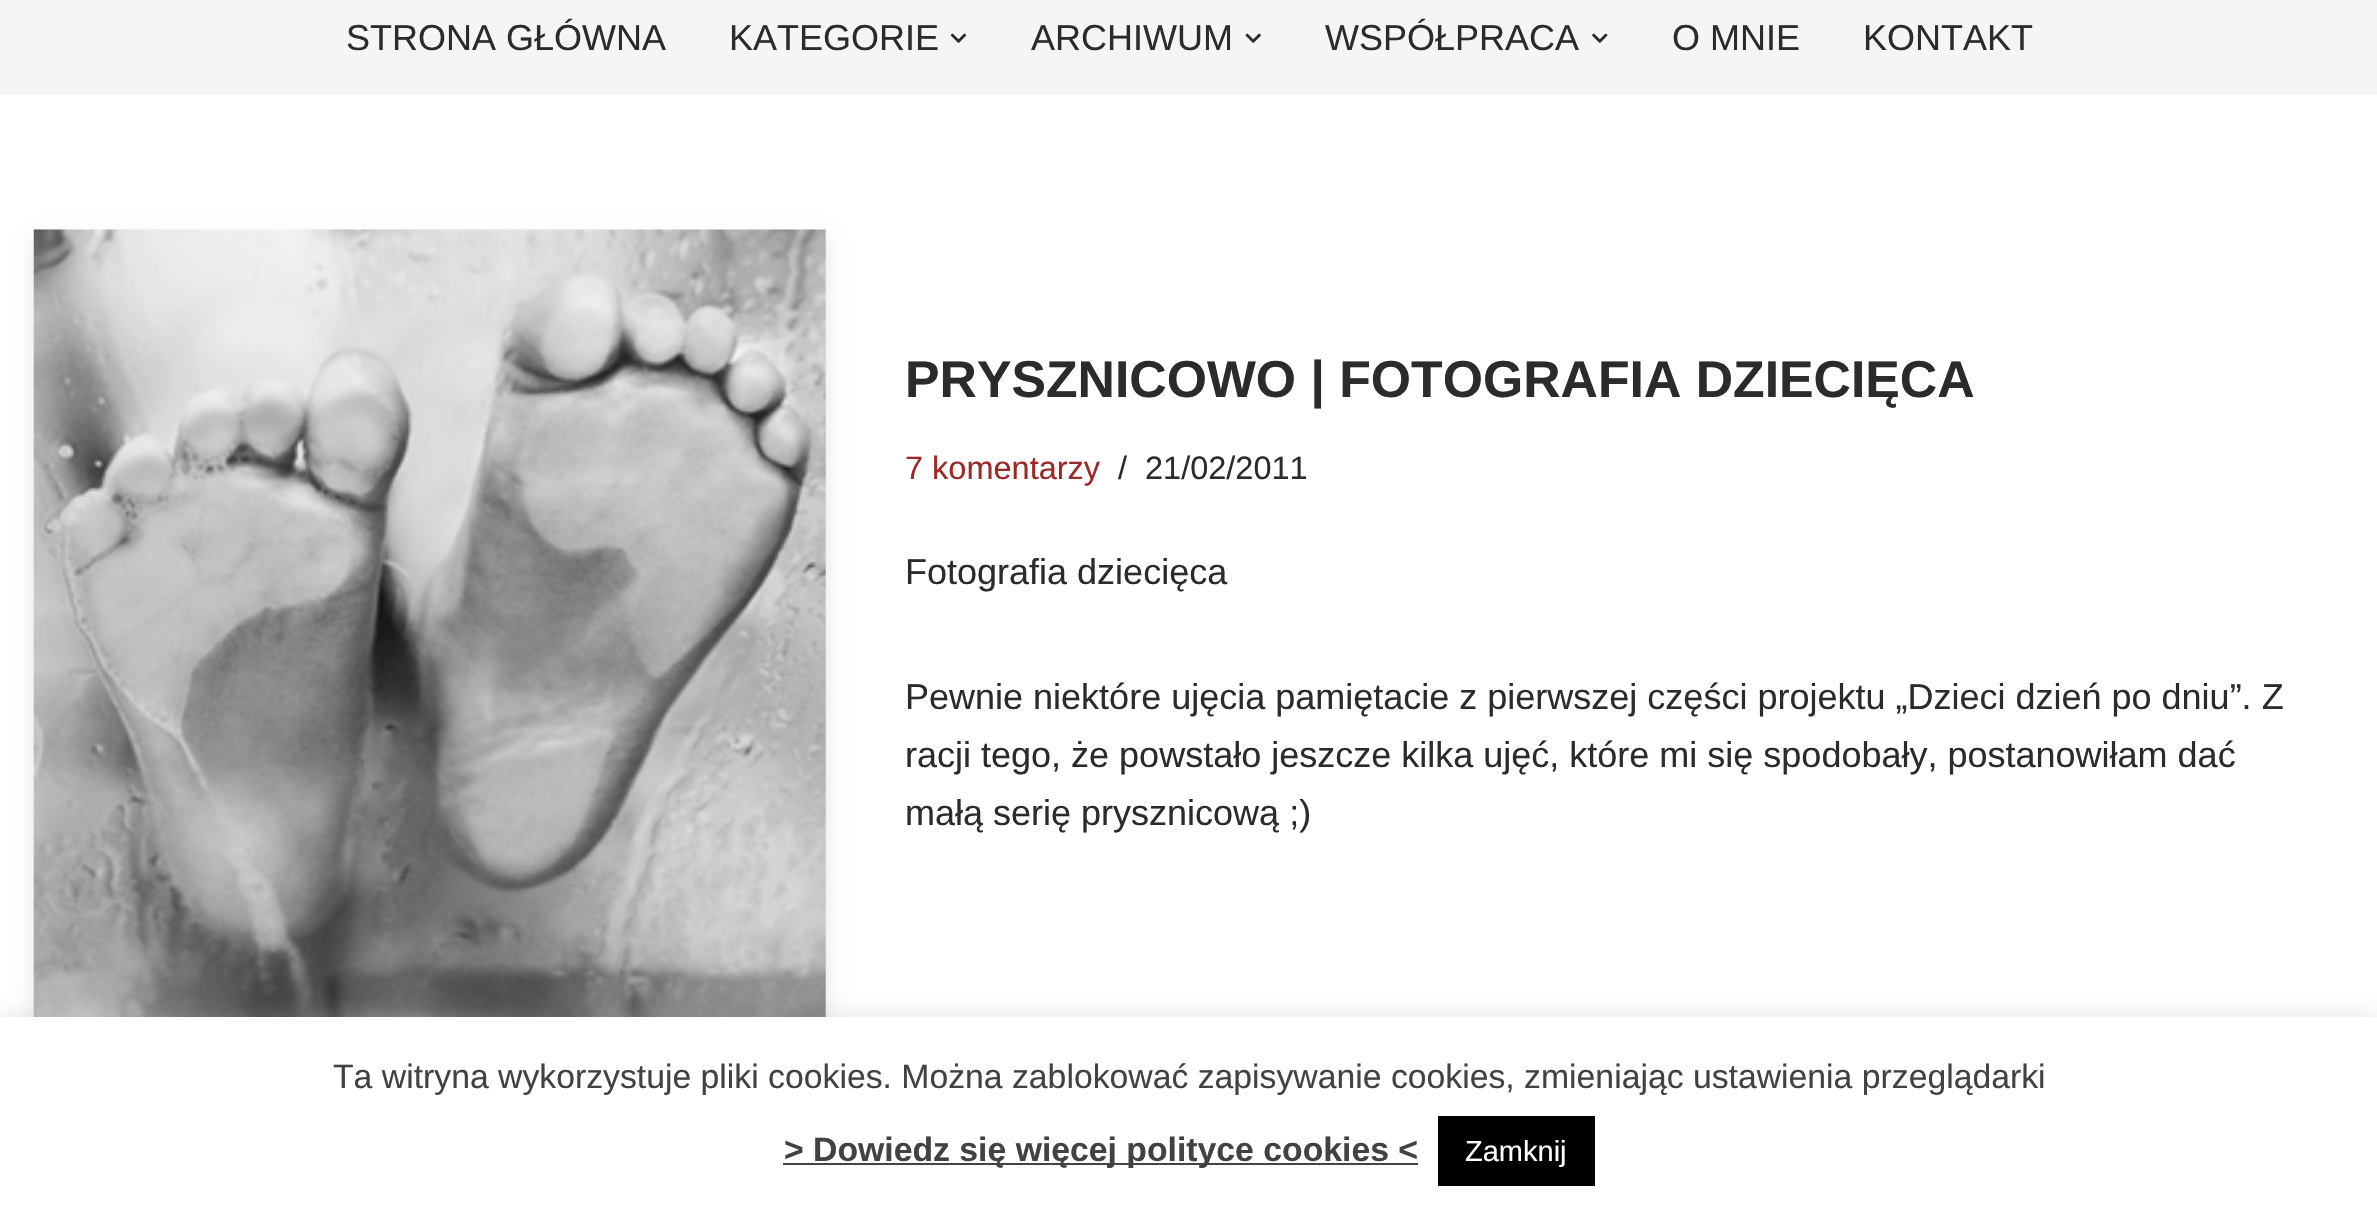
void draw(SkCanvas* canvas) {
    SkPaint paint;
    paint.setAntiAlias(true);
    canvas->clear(0xFFFFFFFF);
    paint.setColor(0xFFF4F5F7);
    canvas->drawRect(SkRect::MakeXYWH(0, 0, 2377, 95), paint);
    SkFont font1(fontMgr->matchFamilyStyle("Liberation Sans", SkFontStyle::Normal()), 36);
    font1.setSubpixel(true);
    paint.setColor(0xFF2B2B2B);
    canvas->drawString("STRONA GŁÓWNA", 346, 50, font1, paint);
    canvas->drawString("KATEGORIE", 729, 50, font1, paint);
    canvas->drawImageRect(SkImages::DeferredFromEncodedData(SkData::MakeFromFileName("img1.png")), SkRect::MakeXYWH(950, 33, 17, 10), SkSamplingOptions());
    canvas->drawString("ARCHIWUM", 1031, 50, font1, paint);
    canvas->drawImageRect(SkImages::DeferredFromEncodedData(SkData::MakeFromFileName("img2.png")), SkRect::MakeXYWH(1245, 33, 16, 10), SkSamplingOptions());
    canvas->drawString("WSPÓŁPRACA", 1325, 50, font1, paint);
    canvas->drawImageRect(SkImages::DeferredFromEncodedData(SkData::MakeFromFileName("img3.png")), SkRect::MakeXYWH(1592, 33, 16, 10), SkSamplingOptions());
    canvas->drawString("O MNIE", 1672, 50, font1, paint);
    canvas->drawString("KONTAKT", 1863, 50, font1, paint);
    paint.setColor(0x1A000000);
    paint.setMaskFilter(SkMaskFilter::MakeBlur(kNormal_SkBlurStyle, 9));
    canvas->drawRect(SkRect::MakeXYWH(34, 239, 792, 792), paint);
    paint.setMaskFilter(nullptr);
    canvas->drawImageRect(SkImages::DeferredFromEncodedData(SkData::MakeFromFileName("img4.png")), SkRect::MakeXYWH(33, 229, 793, 788), SkSamplingOptions());
    SkFont font2(fontMgr->matchFamilyStyle("Liberation Sans", SkFontStyle::Bold()), 51.75f);
    font2.setSubpixel(true);
    paint.setColor(0xFF2B2B2B);
    canvas->drawString("PRYSZNICOWO | FOTOGRAFIA DZIECIĘCA", 905, 397, font2, paint);
    SkFont font3(fontMgr->matchFamilyStyle("Liberation Sans", SkFontStyle::Normal()), 32.5f);
    font3.setSubpixel(true);
    paint.setColor(0xFF9D2828);
    canvas->drawString("7 komentarzy", 905, 479, font3, paint);
    paint.setColor(0xFF2B2B2B);
    canvas->drawString("/", 1118, 479, font3, paint);
    canvas->drawString("21/02/2011", 1145, 479, font3, paint);
    canvas->drawString("Fotografia dziecięca", 905, 584, font1, paint);
    canvas->drawString("Pewnie niektóre ujęcia pamiętacie z pierwszej części projektu „Dzieci dzień po dniu”. Z", 905, 709, font1, paint);
    canvas->drawString("racji tego, że powstało jeszcze kilka ujęć, które mi się spodobały, postanowiłam dać", 905, 767, font1, paint);
    canvas->drawString("małą serię prysznicową ;)", 905, 825, font1, paint);
    paint.setColor(0x4DACABAB);
    paint.setMaskFilter(SkMaskFilter::MakeBlur(kNormal_SkBlurStyle, 11));
    canvas->drawRect(SkRect::MakeXYWH(0, 1015, 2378, 196), paint);
    paint.setMaskFilter(nullptr);
    paint.setColor(0xFFFFFFFF);
    canvas->drawRect(SkRect::MakeXYWH(0, 1017, 2377, 195), paint);
    SkFont font4(fontMgr->matchFamilyStyle("Liberation Sans", SkFontStyle::Normal()), 33.75f);
    font4.setSubpixel(true);
    paint.setColor(0xFF424242);
    canvas->drawString("Ta witryna wykorzystuje pliki cookies. Można zablokować zapisywanie cookies, zmieniając ustawienia przeglądarki", 333, 1088, font4, paint);
    paint.setColor(0xFF444444);
    canvas->drawRect(SkRect::MakeXYWH(783, 1163, 635, 2), paint);
    SkFont font5(fontMgr->matchFamilyStyle("Liberation Sans", SkFontStyle::Bold()), 33.75f);
    font5.setSubpixel(true);
    paint.setColor(0xFF424242);
    canvas->drawString("> Dowiedz się więcej polityce cookies <", 784, 1161, font5, paint);
    paint.setColor(0xFF000000);
    canvas->drawRect(SkRect::MakeXYWH(1438, 1116, 157, 70), paint);
    SkFont font6(fontMgr->matchFamilyStyle("Liberation Sans", SkFontStyle::Normal()), 29);
    font6.setSubpixel(true);
    paint.setColor(0xFFFFFFFF);
    canvas->drawString("Zamknij", 1465, 1161, font6, paint);
}
